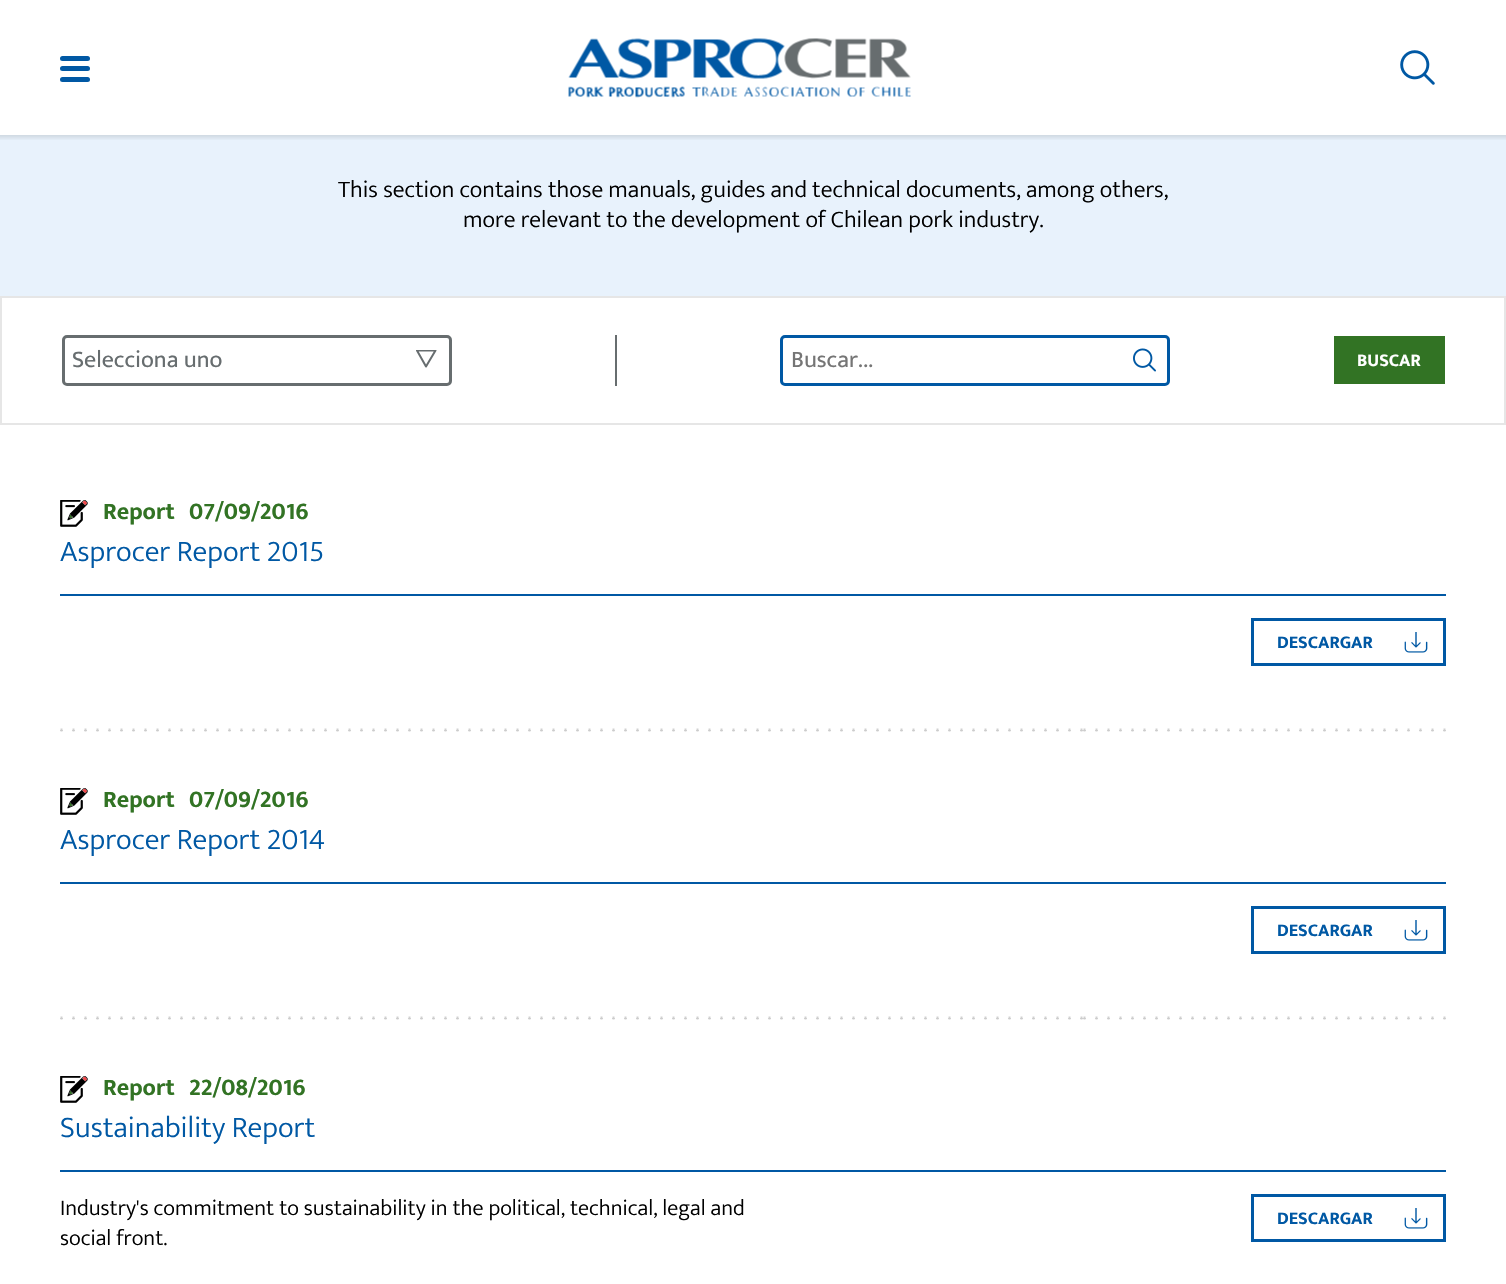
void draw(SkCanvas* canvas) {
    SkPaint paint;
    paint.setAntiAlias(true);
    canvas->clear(0xFFFFFFFF);
    paint.setColor(0xFF0058A4);
    canvas->drawRoundRect(SkRect::MakeXYWH(60, 56, 30, 5), 2.5f, 2.5f, paint);
    canvas->drawRoundRect(SkRect::MakeXYWH(60, 66, 30, 5), 2.5f, 2.5f, paint);
    canvas->drawRoundRect(SkRect::MakeXYWH(60, 77, 30, 5), 2.5f, 2.5f, paint);
    canvas->drawImageRect(SkImages::DeferredFromEncodedData(SkData::MakeFromFileName("img1.png")), SkRect::MakeXYWH(568, 38, 343, 60), SkSamplingOptions());
    canvas->drawImageRect(SkImages::DeferredFromEncodedData(SkData::MakeFromFileName("img2.png")), SkRect::MakeXYWH(1400, 50, 35, 35), SkSamplingOptions());
    paint.setColor(0xFFE8F2FC);
    canvas->drawRect(SkRect::MakeXYWH(0, 135, 1506, 161), paint);
    {
        const SkColor colors[] = {0x1A000000, 0x00000000};
        const float stops[] = {0, 1};
        const SkPoint ends[] = {{753, 135}, {753, 141}};
        paint.setShader(SkGradientShader::MakeLinear(ends, colors, stops, 2, SkTileMode::kClamp));
        paint.setAlpha(255);
    }
    canvas->drawRect(SkRect::MakeXYWH(0, 135, 1506, 5), paint);
    SkFont font1(fontMgr->matchFamilyStyle("Ek Mukta", SkFontStyle(300, SkFontStyle::kNormal_Width, SkFontStyle::kUpright_Slant)), 24);
    font1.setSubpixel(true);
    paint.setShader(nullptr);
    paint.setColor(0xFF000000);
    canvas->drawString("This section contains those manuals, guides and technical documents, among others,", 338, 197, font1, paint);
    canvas->drawString("more relevant to the development of Chilean pork industry.", 463, 227, font1, paint);
    paint.setStyle(SkPaint::kStroke_Style);
    paint.setStrokeWidth(2);
    paint.setColor(0xFFE6E6E6);
    canvas->drawRect(SkRect::MakeXYWH(1, 297, 1504, 127), paint);
    canvas->save();
    canvas->clipRect(SkRect::MakeXYWH(416, 350, 21, 18));
    paint.setStrokeCap(SkPaint::kRound_Cap);
    paint.setStrokeJoin(SkPaint::kRound_Join);
    paint.setColor(0xFF676D6F);
    canvas->drawPath(SkPathBuilder().moveTo(435.5f, 350.5f).lineTo(426, 366.5f).lineTo(417, 350.5f).close().detach(), paint);
    canvas->restore();
    paint.setStrokeWidth(3);
    paint.setStrokeCap(SkPaint::kButt_Cap);
    paint.setStrokeJoin(SkPaint::kMiter_Join);
    canvas->drawRoundRect(SkRect::MakeXYWH(63.5f, 336.5f, 387, 48), 3.5f, 3.5f, paint);
    SkFont font2(fontMgr->matchFamilyStyle("Ek Mukta", SkFontStyle::Normal()), 24);
    font2.setSubpixel(true);
    paint.setStyle(SkPaint::kFill_Style);
    canvas->drawString("Selecciona uno", 72, 367, font2, paint);
    canvas->drawRect(SkRect::MakeXYWH(615, 335, 2, 51), paint);
    paint.setStyle(SkPaint::kStroke_Style);
    paint.setColor(0xFF0058A4);
    canvas->drawRoundRect(SkRect::MakeXYWH(781.5f, 336.5f, 387, 48), 3.5f, 3.5f, paint);
    paint.setStyle(SkPaint::kFill_Style);
    paint.setColor(0xFF757575);
    canvas->drawString("Buscar...", 791, 367, font2, paint);
    canvas->drawImageRect(SkImages::DeferredFromEncodedData(SkData::MakeFromFileName("img3.png")), SkRect::MakeXYWH(1133, 348, 23, 24), SkSamplingOptions());
    paint.setColor(0xFF327324);
    canvas->drawRect(SkRect::MakeXYWH(1334, 336, 111, 48), paint);
    SkFont font3(fontMgr->matchFamilyStyle("Ek Mukta", SkFontStyle::Bold()), 18);
    font3.setSubpixel(true);
    paint.setColor(0xFFFFFFFF);
    canvas->drawString("BUSCAR", 1357, 366, font3, paint);
    canvas->drawImageRect(SkImages::DeferredFromEncodedData(SkData::MakeFromFileName("img4.png")), SkRect::MakeXYWH(60, 500, 28, 27), SkSamplingOptions());
    SkFont font4(fontMgr->matchFamilyStyle("Ek Mukta", SkFontStyle::Bold()), 24);
    font4.setSubpixel(true);
    paint.setColor(0xFF327324);
    canvas->drawString("Report", 103, 519, font4, paint);
    canvas->drawString("07/09/2016", 189, 519, font4, paint);
    paint.setColor(0xFF0058A4);
    canvas->drawRect(SkRect::MakeXYWH(60, 594, 1386, 2), paint);
    SkFont font5(fontMgr->matchFamilyStyle("Ek Mukta", SkFontStyle(300, SkFontStyle::kNormal_Width, SkFontStyle::kUpright_Slant)), 30);
    font5.setSubpixel(true);
    canvas->drawString("Asprocer Report 2015", 60, 561, font5, paint);
    paint.setStyle(SkPaint::kStroke_Style);
    canvas->drawRect(SkRect::MakeXYWH(1252.5f, 619.5f, 192, 45), paint);
    paint.setStyle(SkPaint::kFill_Style);
    canvas->drawString("DESCARGAR", 1277, 648, font3, paint);
    canvas->drawImageRect(SkImages::DeferredFromEncodedData(SkData::MakeFromFileName("img5.png")), SkRect::MakeXYWH(1404, 632, 24, 21), SkSamplingOptions());
    canvas->drawImageRect(SkImages::DeferredFromEncodedData(SkData::MakeFromFileName("img6.png")), SkRect::MakeXYWH(60, 728, 1386, 4), SkSamplingOptions());
    canvas->drawImageRect(SkImages::DeferredFromEncodedData(SkData::MakeFromFileName("img4.png")), SkRect::MakeXYWH(60, 788, 28, 27), SkSamplingOptions());
    paint.setColor(0xFF327324);
    canvas->drawString("Report", 103, 807, font4, paint);
    canvas->drawString("07/09/2016", 189, 807, font4, paint);
    paint.setColor(0xFF0058A4);
    canvas->drawRect(SkRect::MakeXYWH(60, 882, 1386, 2), paint);
    canvas->drawString("Asprocer Report 2014", 60, 849, font5, paint);
    paint.setStyle(SkPaint::kStroke_Style);
    canvas->drawRect(SkRect::MakeXYWH(1252.5f, 907.5f, 192, 45), paint);
    paint.setStyle(SkPaint::kFill_Style);
    canvas->drawString("DESCARGAR", 1277, 936, font3, paint);
    canvas->drawImageRect(SkImages::DeferredFromEncodedData(SkData::MakeFromFileName("img5.png")), SkRect::MakeXYWH(1404, 920, 24, 21), SkSamplingOptions());
    canvas->drawImageRect(SkImages::DeferredFromEncodedData(SkData::MakeFromFileName("img6.png")), SkRect::MakeXYWH(60, 1016, 1386, 4), SkSamplingOptions());
    canvas->drawImageRect(SkImages::DeferredFromEncodedData(SkData::MakeFromFileName("img4.png")), SkRect::MakeXYWH(60, 1076, 28, 27), SkSamplingOptions());
    paint.setColor(0xFF327324);
    canvas->drawString("Report", 103, 1095, font4, paint);
    canvas->drawString("22/08/2016", 189, 1095, font4, paint);
    paint.setColor(0xFF0058A4);
    canvas->drawRect(SkRect::MakeXYWH(60, 1170, 1386, 2), paint);
    canvas->drawString("Sustainability Report", 60, 1137, font5, paint);
    SkFont font6(fontMgr->matchFamilyStyle("Ek Mukta", SkFontStyle(300, SkFontStyle::kNormal_Width, SkFontStyle::kUpright_Slant)), 22.5f);
    font6.setSubpixel(true);
    paint.setColor(0xFF000000);
    canvas->drawString("Industry's commitment to sustainability in the political, technical, legal and", 60, 1215, font6, paint);
    canvas->drawString("social front.", 60, 1245, font6, paint);
    paint.setStyle(SkPaint::kStroke_Style);
    paint.setColor(0xFF0058A4);
    canvas->drawRect(SkRect::MakeXYWH(1252.5f, 1195.5f, 192, 45), paint);
    paint.setStyle(SkPaint::kFill_Style);
    canvas->drawString("DESCARGAR", 1277, 1224, font3, paint);
    canvas->drawImageRect(SkImages::DeferredFromEncodedData(SkData::MakeFromFileName("img5.png")), SkRect::MakeXYWH(1404, 1208, 24, 21), SkSamplingOptions());
}
